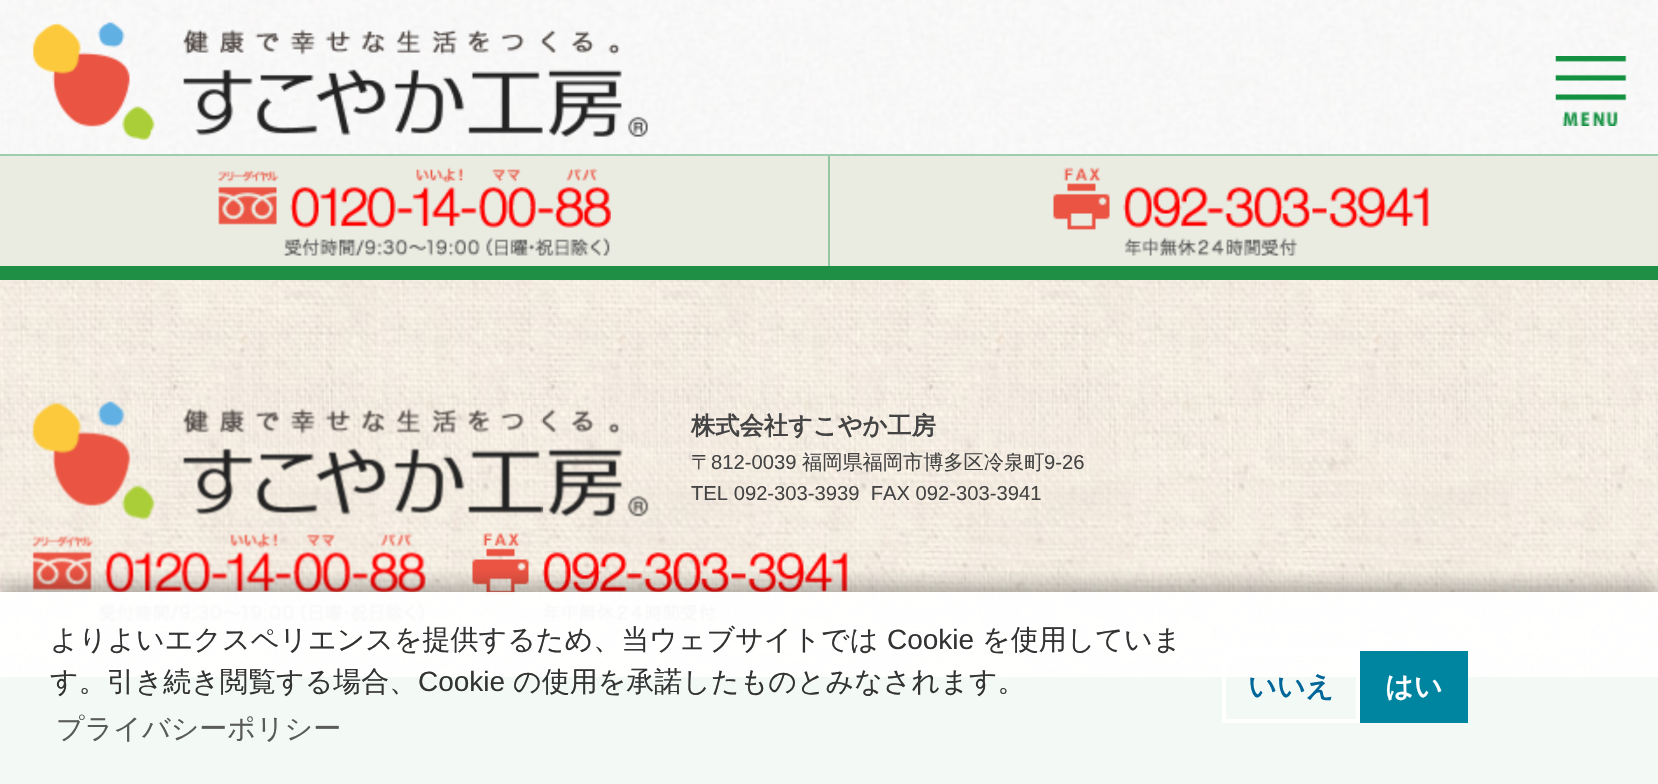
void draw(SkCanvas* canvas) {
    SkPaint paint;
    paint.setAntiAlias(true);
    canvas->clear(0xFFFFFFFF);
    canvas->drawImageRect(SkImages::DeferredFromEncodedData(SkData::MakeFromFileName("img1.png")), SkRect::MakeXYWH(0, 676, 1658, 1), SkSamplingOptions());
    canvas->drawImageRect(SkImages::DeferredFromEncodedData(SkData::MakeFromFileName("img2.png")), SkRect::MakeXYWH(0, 0, 1658, 156), SkSamplingOptions());
    canvas->drawImageRect(SkImages::DeferredFromEncodedData(SkData::MakeFromFileName("img3.png")), SkRect::MakeXYWH(32, 21, 616, 119), SkSamplingOptions());
    canvas->drawImageRect(SkImages::DeferredFromEncodedData(SkData::MakeFromFileName("img4.png")), SkRect::MakeXYWH(1555, 56, 72, 70), SkSamplingOptions());
    paint.setColor(0x66139041);
    canvas->drawRect(SkRect::MakeXYWH(0, 154, 1658, 2), paint);
    paint.setColor(0xFF1E8F44);
    canvas->drawRect(SkRect::MakeXYWH(0, 266, 1658, 14), paint);
    paint.setColor(0xFFEAECE2);
    canvas->drawRect(SkRect::MakeXYWH(0, 156, 828, 110), paint);
    paint.setColor(0xFF94C7A2);
    canvas->drawRect(SkRect::MakeXYWH(828, 156, 2, 110), paint);
    canvas->drawImageRect(SkImages::DeferredFromEncodedData(SkData::MakeFromFileName("img5.png")), SkRect::MakeXYWH(218, 167, 393, 89), SkSamplingOptions());
    paint.setColor(0xFFEAECE2);
    canvas->drawRect(SkRect::MakeXYWH(830, 156, 828, 110), paint);
    canvas->drawImageRect(SkImages::DeferredFromEncodedData(SkData::MakeFromFileName("img6.png")), SkRect::MakeXYWH(1053, 167, 376, 89), SkSamplingOptions());
    canvas->drawImageRect(SkImages::DeferredFromEncodedData(SkData::MakeFromFileName("img7.png")), SkRect::MakeXYWH(0, 280, 1658, 397), SkSamplingOptions());
    canvas->drawImageRect(SkImages::DeferredFromEncodedData(SkData::MakeFromFileName("img8.png")), SkRect::MakeXYWH(32, 401, 617, 119), SkSamplingOptions());
    SkFont font1(fontMgr->matchFamilyStyle("WenQuanYi Zen Hei", SkFontStyle::Bold()), 24.25f);
    font1.setSubpixel(true);
    paint.setColor(0xFF444444);
    canvas->drawString("株式会社すこやか工房", 691, 434, font1, paint);
    SkFont font2(fontMgr->matchFamilyStyle("WenQuanYi Zen Hei", SkFontStyle(500, SkFontStyle::kNormal_Width, SkFontStyle::kUpright_Slant)), 20.2f);
    font2.setSubpixel(true);
    canvas->drawString("〒", 691, 469, font2, paint);
    SkFont font3(fontMgr->matchFamilyStyle("Liberation Sans", SkFontStyle::Normal()), 20.2f);
    font3.setSubpixel(true);
    canvas->drawString("812-0039", 711, 469, font3, paint);
    canvas->drawString("福岡県福岡市博多区冷泉町", 802, 469, font2, paint);
    canvas->drawString("9-26", 1044, 469, font3, paint);
    canvas->drawString("TEL 092-303-3939  FAX 092-303-3941", 691, 500, font3, paint);
    canvas->drawImageRect(SkImages::DeferredFromEncodedData(SkData::MakeFromFileName("img9.png")), SkRect::MakeXYWH(32, 532, 394, 90), SkSamplingOptions());
    canvas->drawImageRect(SkImages::DeferredFromEncodedData(SkData::MakeFromFileName("img10.png")), SkRect::MakeXYWH(472, 532, 376, 89), SkSamplingOptions());
    paint.setColor(0xFF139041);
    canvas->drawRect(SkRect::MakeXYWH(0, 677, 1658, 107), paint);
    canvas->save();
    canvas->clipRect(SkRect::MakeXYWH(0, 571, 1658, 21));
    paint.setColor(0x4D000000);
    paint.setMaskFilter(SkMaskFilter::MakeBlur(kNormal_SkBlurStyle, 9));
    canvas->drawRect(SkRect::MakeXYWH(0, 585, 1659, 192), paint);
    paint.setMaskFilter(nullptr);
    canvas->restore();
    paint.setColor(0xF2FFFFFF);
    canvas->drawRect(SkRect::MakeXYWH(0, 592, 1658, 192), paint);
    SkFont font4(fontMgr->matchFamilyStyle("WenQuanYi Zen Hei", SkFontStyle(500, SkFontStyle::kNormal_Width, SkFontStyle::kUpright_Slant)), 28);
    font4.setSubpixel(true);
    paint.setColor(0xFF333333);
    canvas->drawString("よりよいエクスペリエンスを提供するため、当ウェブサイトでは", 50, 649, font4, paint);
    SkFont font5(fontMgr->matchFamilyStyle("Liberation Sans", SkFontStyle::Normal()), 28);
    font5.setSubpixel(true);
    canvas->drawString("Cookie", 887, 649, font5, paint);
    canvas->drawString("を使用していま", 982, 649, font4, paint);
    canvas->drawString("す。引き続き閲覧する場合、", 50, 691, font4, paint);
    canvas->drawString("Cookie", 418, 691, font5, paint);
    canvas->drawString("の使用を承諾したものとみなされます。", 513, 691, font4, paint);
    paint.setColor(0xFF595B5A);
    canvas->drawString("プライバシーポリシー", 56, 738, font4, paint);
    paint.setStyle(SkPaint::kStroke_Style);
    paint.setStrokeWidth(4);
    paint.setColor(0xFFFFFFFF);
    canvas->drawRect(SkRect::MakeXYWH(1224, 653, 134, 68), paint);
    SkFont font6(fontMgr->matchFamilyStyle("WenQuanYi Zen Hei", SkFontStyle::Bold()), 28);
    font6.setSubpixel(true);
    paint.setStyle(SkPaint::kFill_Style);
    paint.setColor(0xFF006699);
    canvas->drawString("いいえ", 1248, 696, font6, paint);
    paint.setColor(0xFF0085A1);
    canvas->drawRect(SkRect::MakeXYWH(1360, 651, 108, 72), paint);
    paint.setColor(0xFFFFFFFF);
    canvas->drawString("はい", 1385, 696, font6, paint);
}
